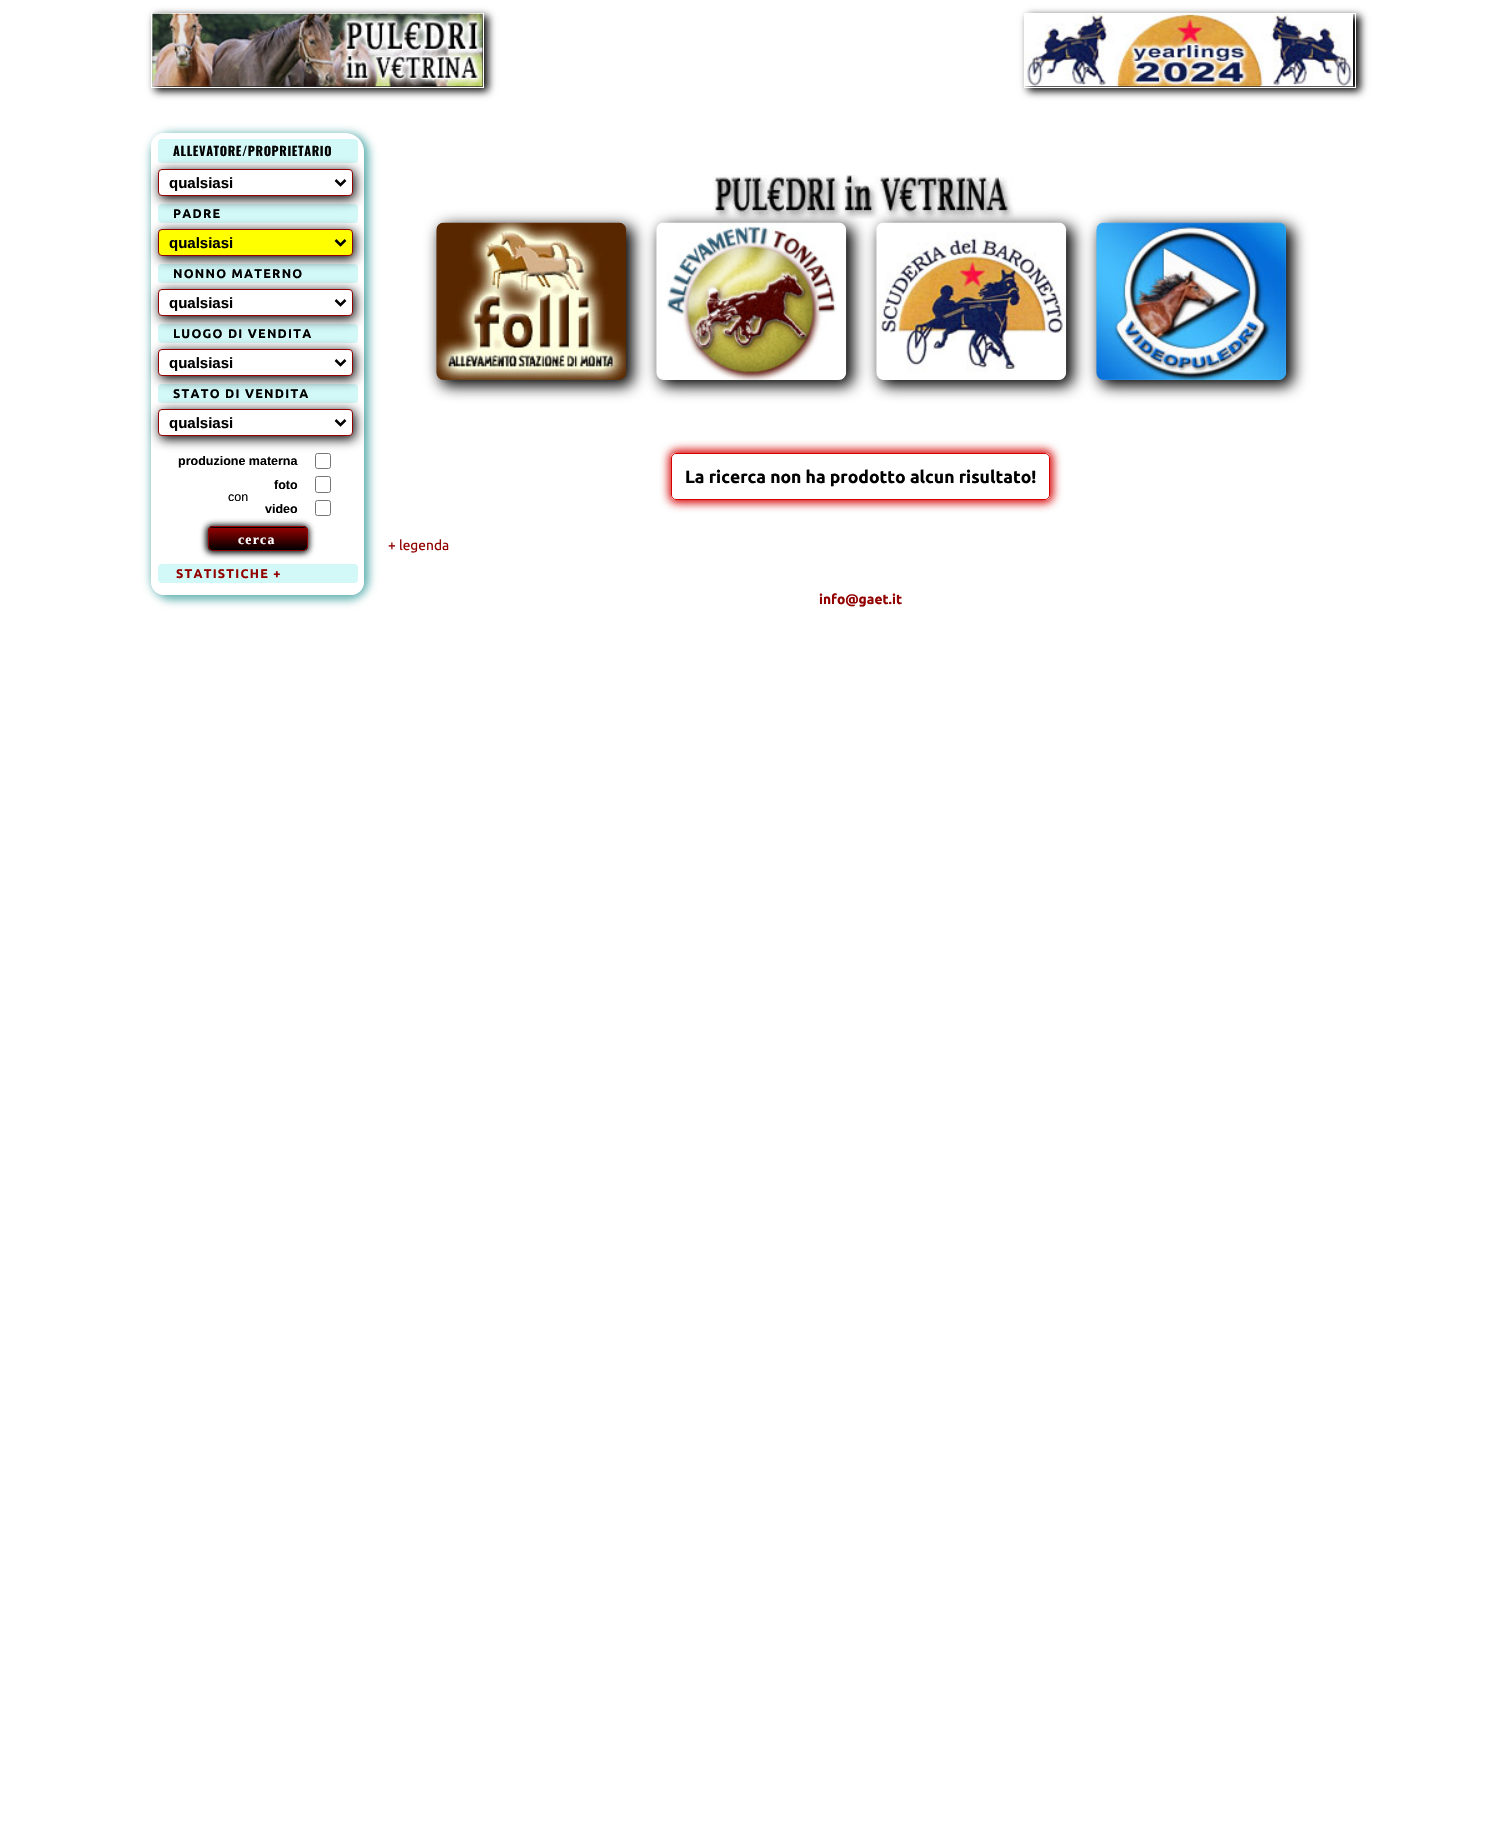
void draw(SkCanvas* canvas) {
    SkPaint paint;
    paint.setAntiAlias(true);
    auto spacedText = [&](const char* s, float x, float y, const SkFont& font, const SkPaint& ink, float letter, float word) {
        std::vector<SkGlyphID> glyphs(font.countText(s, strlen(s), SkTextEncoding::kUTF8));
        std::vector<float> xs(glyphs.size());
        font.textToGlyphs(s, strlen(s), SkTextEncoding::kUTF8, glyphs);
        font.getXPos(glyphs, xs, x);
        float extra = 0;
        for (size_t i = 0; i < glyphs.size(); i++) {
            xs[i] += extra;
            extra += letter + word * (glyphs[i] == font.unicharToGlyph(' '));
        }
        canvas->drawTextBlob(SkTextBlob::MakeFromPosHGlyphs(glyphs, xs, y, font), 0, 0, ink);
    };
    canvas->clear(0xFFFFFFFF);
    paint.setColor(0xFF000000);
    paint.setMaskFilter(SkMaskFilter::MakeBlur(kNormal_SkBlurStyle, 4));
    canvas->drawRect(SkRect::MakeXYWH(155, 16, 333, 75), paint);
    paint.setMaskFilter(nullptr);
    paint.setStyle(SkPaint::kStroke_Style);
    paint.setStrokeWidth(1);
    paint.setColor(0xFFFFFFFF);
    canvas->drawRect(SkRect::MakeXYWH(151.5f, 13.5f, 332, 74), paint);
    canvas->drawImageRect(SkImages::DeferredFromEncodedData(SkData::MakeFromFileName("img1.png")), SkRect::MakeXYWH(152, 13, 331, 74), SkSamplingOptions());
    paint.setStyle(SkPaint::kFill_Style);
    paint.setColor(0xFF000000);
    paint.setMaskFilter(SkMaskFilter::MakeBlur(kNormal_SkBlurStyle, 4));
    canvas->drawRect(SkRect::MakeXYWH(1028, 16, 332, 75), paint);
    paint.setMaskFilter(nullptr);
    paint.setStyle(SkPaint::kStroke_Style);
    paint.setColor(0xFFFFFFFF);
    canvas->drawRect(SkRect::MakeXYWH(1024.5f, 13.5f, 331, 74), paint);
    canvas->drawImageRect(SkImages::DeferredFromEncodedData(SkData::MakeFromFileName("img2.png")), SkRect::MakeXYWH(1025, 13, 328, 74), SkSamplingOptions());
    canvas->save();
    canvas->clipPath(SkPathBuilder(SkPathFillType::kEvenOdd).moveTo(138, 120).lineTo(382, 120).lineTo(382, 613).lineTo(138, 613).close().moveTo(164, 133).lineTo(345, 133).cubicTo(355.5f, 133, 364, 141.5f, 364, 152).lineTo(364, 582).cubicTo(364, 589, 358, 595, 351, 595).lineTo(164, 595).cubicTo(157, 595, 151, 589, 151, 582).lineTo(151, 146).cubicTo(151, 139, 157, 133, 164, 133).close().detach(), true);
    paint.setStyle(SkPaint::kFill_Style);
    paint.setColor(0xFF66B3B3);
    paint.setMaskFilter(SkMaskFilter::MakeBlur(kNormal_SkBlurStyle, 4));
    canvas->drawRoundRect(SkRect::MakeXYWH(151, 133, 218, 467), 21, 21, paint);
    paint.setMaskFilter(nullptr);
    canvas->restore();
    paint.setColor(0xB3FFFFFF);
    canvas->drawPath(SkPathBuilder().moveTo(164, 133).lineTo(345, 133).cubicTo(355.5f, 133, 364, 141.5f, 364, 152).lineTo(364, 582).cubicTo(364, 589, 358, 595, 351, 595).lineTo(164, 595).cubicTo(157, 595, 151, 589, 151, 582).lineTo(151, 146).cubicTo(151, 139, 157, 133, 164, 133).close().detach(), paint);
    paint.setColor(0xFFD2F8F8);
    canvas->drawRoundRect(SkRect::MakeXYWH(158, 139, 200, 24), 4, 4, paint);
    SkFont font1(fontMgr->matchFamilyStyle("Oswald", SkFontStyle::Bold()), 12.5f);
    font1.setSubpixel(true);
    paint.setColor(0xFF000000);
    spacedText("ALLEVATORE/PROPRIETARIO", 173, 156, font1, paint, 0.6f, 0);
    paint.setColor(0xFFD2F8F8);
    canvas->drawRoundRect(SkRect::MakeXYWH(158, 204, 200, 19), 4, 4, paint);
    paint.setColor(0xFF000000);
    paint.setMaskFilter(SkMaskFilter::MakeBlur(kNormal_SkBlurStyle, 6));
    canvas->drawRoundRect(SkRect::MakeXYWH(160, 171, 195, 28), 4, 4, paint);
    paint.setMaskFilter(nullptr);
    paint.setColor(0xFFFFFFFF);
    canvas->drawRoundRect(SkRect::MakeXYWH(158.5f, 169.5f, 194, 26), 3.5f, 3.5f, paint);
    paint.setStyle(SkPaint::kStroke_Style);
    paint.setColor(0xFF920000);
    canvas->drawRoundRect(SkRect::MakeXYWH(158.5f, 169.5f, 194, 26), 3.5f, 3.5f, paint);
    paint.setStrokeWidth(2.5f);
    paint.setColor(0xFF000000);
    canvas->drawPath(SkPathBuilder().moveTo(335.5f, 180).lineTo(340.5f, 185).lineTo(345.5f, 180).detach(), paint);
    SkFont font2(fontMgr->matchFamilyStyle("Liberation Sans", SkFontStyle::Bold()), 15);
    font2.setSubpixel(true);
    paint.setStyle(SkPaint::kFill_Style);
    canvas->drawString("qualsiasi", 169, 188, font2, paint);
    SkFont font3(fontMgr->matchFamilyStyle("Ubuntu", SkFontStyle::Bold()), 12.5f);
    font3.setSubpixel(true);
    spacedText("PADRE", 173, 218, font3, paint, 1.25f, 0);
    paint.setColor(0xFFD2F8F8);
    canvas->drawRoundRect(SkRect::MakeXYWH(158, 264, 200, 19), 4, 4, paint);
    paint.setColor(0xFF000000);
    paint.setMaskFilter(SkMaskFilter::MakeBlur(kNormal_SkBlurStyle, 6));
    canvas->drawRoundRect(SkRect::MakeXYWH(160, 231, 195, 28), 4, 4, paint);
    paint.setMaskFilter(nullptr);
    paint.setColor(0xFFFFFF00);
    canvas->drawRoundRect(SkRect::MakeXYWH(158.5f, 229.5f, 194, 26), 3.5f, 3.5f, paint);
    paint.setStyle(SkPaint::kStroke_Style);
    paint.setStrokeWidth(1);
    paint.setColor(0xFF920000);
    canvas->drawRoundRect(SkRect::MakeXYWH(158.5f, 229.5f, 194, 26), 3.5f, 3.5f, paint);
    paint.setStrokeWidth(2.5f);
    paint.setColor(0xFF000000);
    canvas->drawPath(SkPathBuilder().moveTo(335.5f, 240).lineTo(340.5f, 245).lineTo(345.5f, 240).detach(), paint);
    paint.setStyle(SkPaint::kFill_Style);
    canvas->drawString("qualsiasi", 169, 248, font2, paint);
    spacedText("NONNO MATERNO", 173, 278, font3, paint, 1.25f, 0);
    paint.setColor(0xFFD2F8F8);
    canvas->drawRoundRect(SkRect::MakeXYWH(158, 324, 200, 19), 4, 4, paint);
    paint.setColor(0xFF000000);
    paint.setMaskFilter(SkMaskFilter::MakeBlur(kNormal_SkBlurStyle, 6));
    canvas->drawRoundRect(SkRect::MakeXYWH(160, 291, 195, 28), 4, 4, paint);
    paint.setMaskFilter(nullptr);
    paint.setColor(0xFFFFFFFF);
    canvas->drawRoundRect(SkRect::MakeXYWH(158.5f, 289.5f, 194, 26), 3.5f, 3.5f, paint);
    paint.setStyle(SkPaint::kStroke_Style);
    paint.setStrokeWidth(1);
    paint.setColor(0xFF920000);
    canvas->drawRoundRect(SkRect::MakeXYWH(158.5f, 289.5f, 194, 26), 3.5f, 3.5f, paint);
    paint.setStrokeWidth(2.5f);
    paint.setColor(0xFF000000);
    canvas->drawPath(SkPathBuilder().moveTo(335.5f, 300).lineTo(340.5f, 305).lineTo(345.5f, 300).detach(), paint);
    paint.setStyle(SkPaint::kFill_Style);
    canvas->drawString("qualsiasi", 169, 308, font2, paint);
    spacedText("LUOGO DI VENDITA", 173, 338, font3, paint, 1.25f, 0);
    paint.setColor(0xFFD2F8F8);
    canvas->drawRoundRect(SkRect::MakeXYWH(158, 384, 200, 19), 4, 4, paint);
    paint.setColor(0xFF000000);
    paint.setMaskFilter(SkMaskFilter::MakeBlur(kNormal_SkBlurStyle, 6));
    canvas->drawRoundRect(SkRect::MakeXYWH(160, 351, 195, 28), 4, 4, paint);
    paint.setMaskFilter(nullptr);
    paint.setColor(0xFFFFFFFF);
    canvas->drawRoundRect(SkRect::MakeXYWH(158.5f, 349.5f, 194, 26), 3.5f, 3.5f, paint);
    paint.setStyle(SkPaint::kStroke_Style);
    paint.setStrokeWidth(1);
    paint.setColor(0xFF920000);
    canvas->drawRoundRect(SkRect::MakeXYWH(158.5f, 349.5f, 194, 26), 3.5f, 3.5f, paint);
    paint.setStrokeWidth(2.5f);
    paint.setColor(0xFF000000);
    canvas->drawPath(SkPathBuilder().moveTo(335.5f, 360).lineTo(340.5f, 365).lineTo(345.5f, 360).detach(), paint);
    paint.setStyle(SkPaint::kFill_Style);
    canvas->drawString("qualsiasi", 169, 368, font2, paint);
    spacedText("STATO DI VENDITA", 173, 398, font3, paint, 1.25f, 0);
    paint.setMaskFilter(SkMaskFilter::MakeBlur(kNormal_SkBlurStyle, 6));
    canvas->drawRoundRect(SkRect::MakeXYWH(160, 411, 195, 28), 4, 4, paint);
    paint.setMaskFilter(nullptr);
    paint.setColor(0xFFFFFFFF);
    canvas->drawRoundRect(SkRect::MakeXYWH(158.5f, 409.5f, 194, 26), 3.5f, 3.5f, paint);
    paint.setStyle(SkPaint::kStroke_Style);
    paint.setStrokeWidth(1);
    paint.setColor(0xFF920000);
    canvas->drawRoundRect(SkRect::MakeXYWH(158.5f, 409.5f, 194, 26), 3.5f, 3.5f, paint);
    paint.setStrokeWidth(2.5f);
    paint.setColor(0xFF000000);
    canvas->drawPath(SkPathBuilder().moveTo(335.5f, 420).lineTo(340.5f, 425).lineTo(345.5f, 420).detach(), paint);
    paint.setStyle(SkPaint::kFill_Style);
    canvas->drawString("qualsiasi", 169, 428, font2, paint);
    SkFont font4(fontMgr->matchFamilyStyle("Liberation Sans", SkFontStyle::Bold()), 12.5f);
    font4.setSubpixel(true);
    canvas->drawString("produzione materna", 178, 465, font4, paint);
    paint.setStyle(SkPaint::kStroke_Style);
    paint.setStrokeWidth(1);
    paint.setColor(0xFF767676);
    canvas->drawRoundRect(SkRect::MakeXYWH(315.5f, 453.5f, 15, 15), 2, 2, paint);
    paint.setStyle(SkPaint::kFill_Style);
    paint.setColor(0xFF000000);
    canvas->drawString("foto", 274, 489, font4, paint);
    paint.setStyle(SkPaint::kStroke_Style);
    paint.setColor(0xFF767676);
    canvas->drawRoundRect(SkRect::MakeXYWH(315.5f, 476.5f, 15, 16), 2, 2, paint);
    SkFont font5(fontMgr->matchFamilyStyle("Liberation Sans", SkFontStyle::Normal()), 12.5f);
    font5.setSubpixel(true);
    paint.setStyle(SkPaint::kFill_Style);
    paint.setColor(0xFF000000);
    canvas->drawString("con", 228, 501, font5, paint);
    canvas->drawString("video", 265, 513, font4, paint);
    paint.setStyle(SkPaint::kStroke_Style);
    paint.setColor(0xFF767676);
    canvas->drawRoundRect(SkRect::MakeXYWH(315.5f, 500.5f, 15, 15), 2, 2, paint);
    paint.setStyle(SkPaint::kFill_Style);
    paint.setColor(0xFF000000);
    paint.setMaskFilter(SkMaskFilter::MakeBlur(kNormal_SkBlurStyle, 3));
    canvas->drawRoundRect(SkRect::MakeXYWH(206, 525, 103, 28), 6, 6, paint);
    paint.setMaskFilter(nullptr);
    canvas->save();
    canvas->clipPath(SkPathBuilder().moveTo(213, 526).lineTo(303, 526).cubicTo(306, 526, 308, 528, 308, 531).lineTo(308, 546).cubicTo(308, 549, 306, 551, 303, 551).lineTo(213, 551).cubicTo(210, 551, 208, 549, 208, 546).lineTo(208, 531).cubicTo(208, 528, 210, 526, 213, 526).close().detach(), true);
    {
        const SkColor colors[] = {0xFF920000, 0xFF000000};
        const float stops[] = {0, 1};
        const SkPoint ends[] = {{258, 505}, {258, 528}};
        paint.setShader(SkGradientShader::MakeLinear(ends, colors, stops, 2, SkTileMode::kClamp));
        paint.setAlpha(255);
    }
    canvas->drawRect(SkRect::MakeXYWH(208, 526, 100, 2), paint);
    {
        const SkColor colors[] = {0xFF920000, 0xFF000000};
        const float stops[] = {0, 1};
        const SkPoint ends[] = {{258, 528}, {258, 550}};
        paint.setShader(SkGradientShader::MakeLinear(ends, colors, stops, 2, SkTileMode::kClamp));
        paint.setAlpha(255);
    }
    canvas->drawRect(SkRect::MakeXYWH(208, 528, 100, 22), paint);
    canvas->restore();
    paint.setStyle(SkPaint::kStroke_Style);
    paint.setShader(nullptr);
    paint.setColor(0xFF920000);
    canvas->drawRoundRect(SkRect::MakeXYWH(208.5f, 526.5f, 99, 24), 4.5f, 4.5f, paint);
    SkFont font6(fontMgr->matchFamilyStyle("Liberation Serif", SkFontStyle::Bold()), 13.75f);
    font6.setSubpixel(true);
    paint.setStyle(SkPaint::kFill_Style);
    paint.setColor(0xFFFFFFFF);
    spacedText("cerca", 238, 544, font6, paint, 1.25f, 0);
    paint.setColor(0xFFD2F8F8);
    canvas->drawRoundRect(SkRect::MakeXYWH(158, 564, 200, 19), 4, 4, paint);
    paint.setColor(0xFF920000);
    spacedText("STATISTICHE +", 176, 578, font3, paint, 1.25f, 0);
    canvas->drawImageRect(SkImages::DeferredFromEncodedData(SkData::MakeFromFileName("img3.png")), SkRect::MakeXYWH(713, 175, 302, 44), SkSamplingOptions());
    paint.setColor(0xFF000000);
    paint.setMaskFilter(SkMaskFilter::MakeBlur(kNormal_SkBlurStyle, 7.5f));
    canvas->drawRoundRect(SkRect::MakeXYWH(440, 226, 193, 160), 9, 9, paint);
    paint.setMaskFilter(nullptr);
    canvas->drawImageRect(SkImages::DeferredFromEncodedData(SkData::MakeFromFileName("img4.png")), SkRect::MakeXYWH(436, 222, 191, 158), SkSamplingOptions());
    paint.setMaskFilter(SkMaskFilter::MakeBlur(kNormal_SkBlurStyle, 7.5f));
    canvas->drawRoundRect(SkRect::MakeXYWH(660, 226, 193, 160), 9, 9, paint);
    paint.setMaskFilter(nullptr);
    canvas->drawImageRect(SkImages::DeferredFromEncodedData(SkData::MakeFromFileName("img5.png")), SkRect::MakeXYWH(656, 222, 191, 158), SkSamplingOptions());
    paint.setMaskFilter(SkMaskFilter::MakeBlur(kNormal_SkBlurStyle, 7.5f));
    canvas->drawRoundRect(SkRect::MakeXYWH(880, 226, 193, 160), 9, 9, paint);
    paint.setMaskFilter(nullptr);
    canvas->drawImageRect(SkImages::DeferredFromEncodedData(SkData::MakeFromFileName("img6.png")), SkRect::MakeXYWH(876, 222, 191, 158), SkSamplingOptions());
    paint.setMaskFilter(SkMaskFilter::MakeBlur(kNormal_SkBlurStyle, 7.5f));
    canvas->drawRoundRect(SkRect::MakeXYWH(1100, 226, 193, 160), 9, 9, paint);
    paint.setMaskFilter(nullptr);
    canvas->drawImageRect(SkImages::DeferredFromEncodedData(SkData::MakeFromFileName("img7.png")), SkRect::MakeXYWH(1096, 222, 191, 158), SkSamplingOptions());
    canvas->save();
    canvas->clipPath(SkPathBuilder(SkPathFillType::kEvenOdd).moveTo(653, 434).lineTo(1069, 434).lineTo(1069, 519).lineTo(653, 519).close().moveTo(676, 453).lineTo(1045, 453).cubicTo(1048, 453, 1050, 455, 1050, 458).lineTo(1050, 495).cubicTo(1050, 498, 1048, 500, 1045, 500).lineTo(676, 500).cubicTo(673, 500, 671, 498, 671, 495).lineTo(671, 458).cubicTo(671, 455, 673, 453, 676, 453).close().detach(), true);
    paint.setColor(0xFFD70000);
    paint.setMaskFilter(SkMaskFilter::MakeBlur(kNormal_SkBlurStyle, 5));
    canvas->drawRoundRect(SkRect::MakeXYWH(669, 450, 384, 53), 8, 8, paint);
    paint.setMaskFilter(nullptr);
    canvas->restore();
    paint.setStyle(SkPaint::kStroke_Style);
    canvas->drawRoundRect(SkRect::MakeXYWH(671.5f, 453.5f, 378, 46), 4.5f, 4.5f, paint);
    SkFont font7(fontMgr->matchFamilyStyle("Ubuntu", SkFontStyle::Bold()), 17.5f);
    font7.setSubpixel(true);
    paint.setStyle(SkPaint::kFill_Style);
    paint.setColor(0xFF000000);
    canvas->drawString("La ricerca non ha prodotto alcun risultato!", 685, 483, font7, paint);
    SkFont font8(fontMgr->matchFamilyStyle("Ubuntu", SkFontStyle::Normal()), 13.75f);
    font8.setSubpixel(true);
    paint.setColor(0xFF920000);
    canvas->drawString("+ legenda", 388, 550, font8, paint);
    SkFont font9(fontMgr->matchFamilyStyle("Ubuntu", SkFontStyle::Bold()), 13.75f);
    font9.setSubpixel(true);
    canvas->drawString("info@gaet.it", 819, 604, font9, paint);
}
